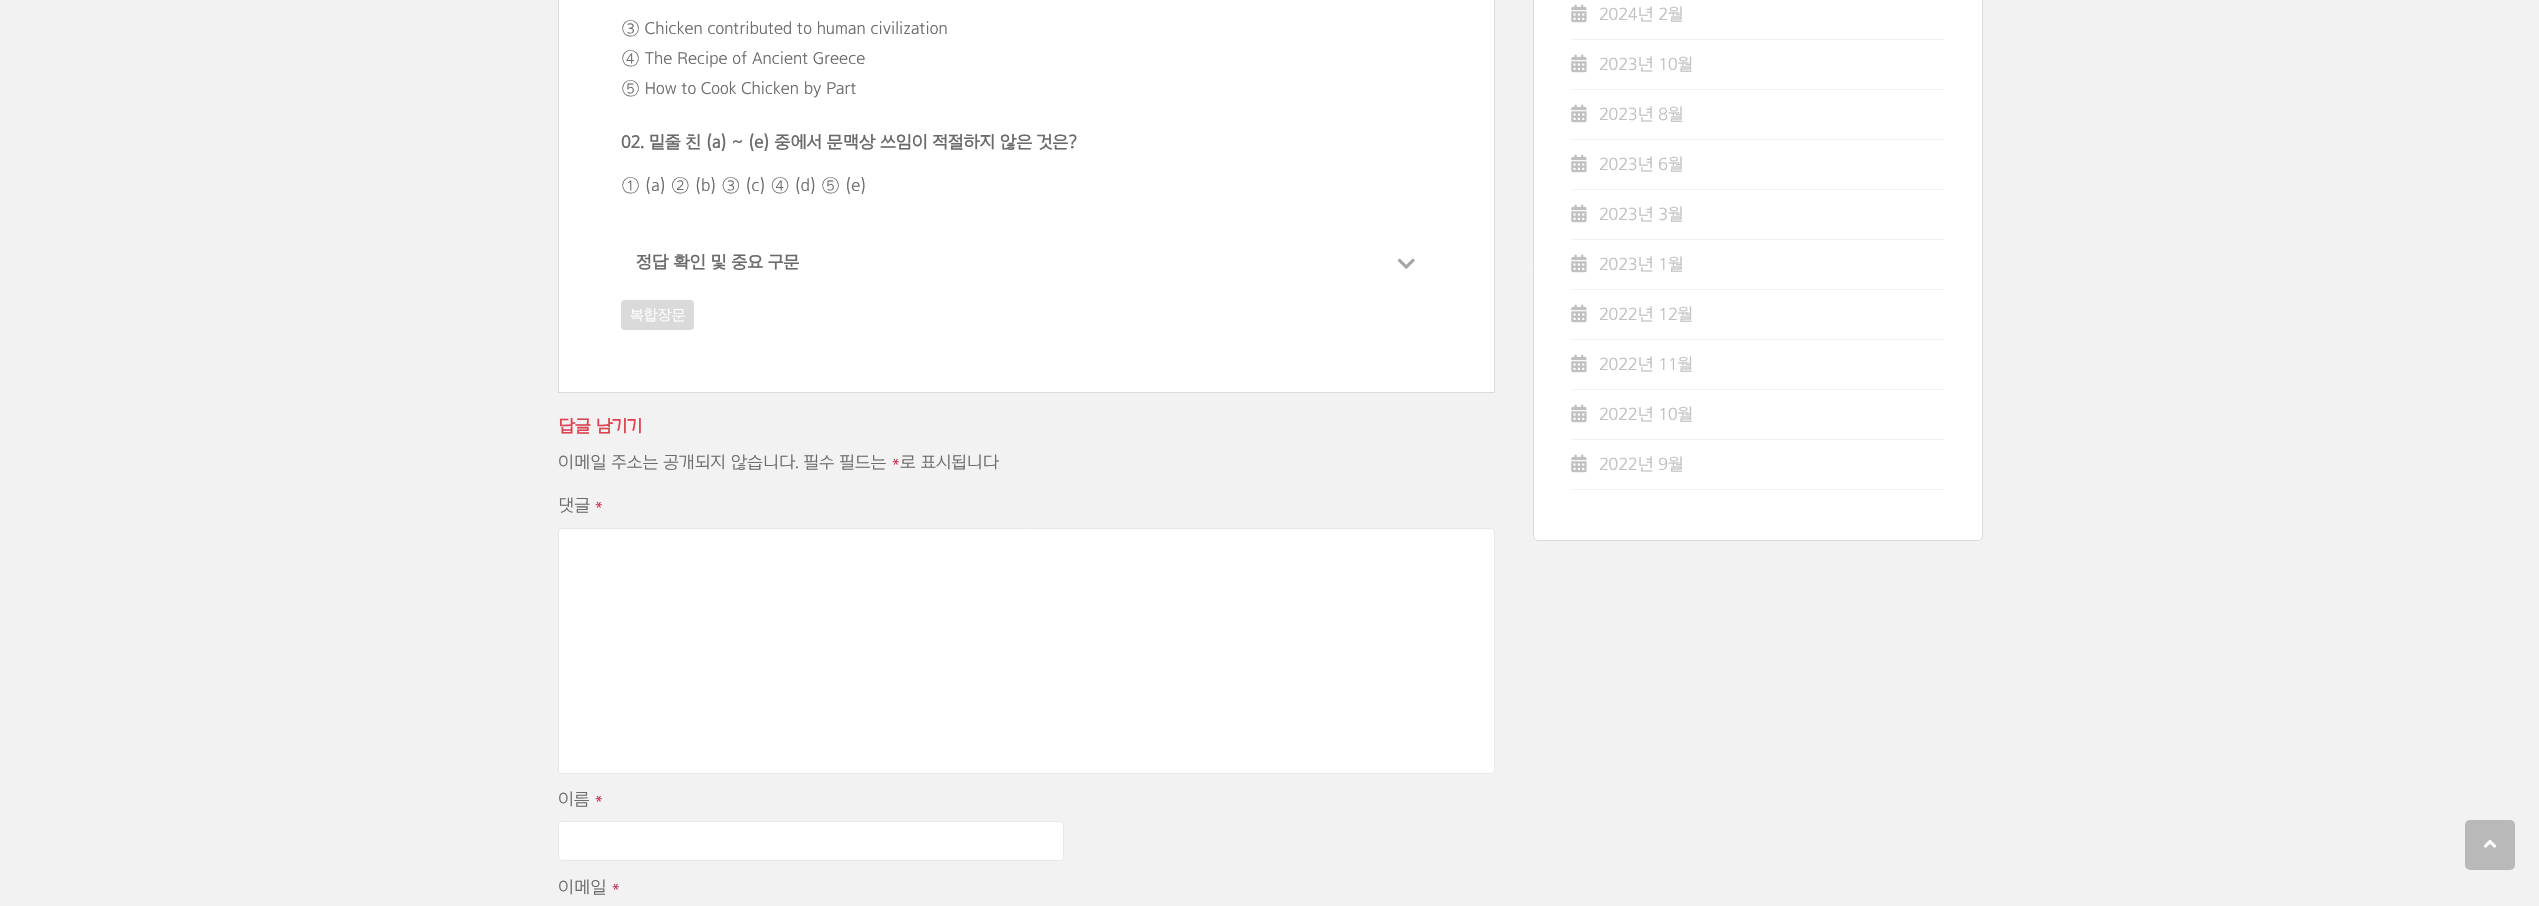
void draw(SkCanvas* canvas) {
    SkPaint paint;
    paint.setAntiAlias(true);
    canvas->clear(0xFFF2F2F2);
    paint.setColor(0xFFFFFFFF);
    canvas->drawRect(SkRect::MakeXYWH(558.5f, -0.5f, 936, 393), paint);
    paint.setStyle(SkPaint::kStroke_Style);
    paint.setStrokeWidth(1);
    paint.setColor(0xFFDADADA);
    canvas->drawRect(SkRect::MakeXYWH(558.5f, -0.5f, 936, 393), paint);
    SkFont font1(fontMgr->matchFamilyStyle("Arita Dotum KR", SkFontStyle(500, SkFontStyle::kNormal_Width, SkFontStyle::kUpright_Slant)), 17.5f);
    font1.setSubpixel(true);
    paint.setStyle(SkPaint::kFill_Style);
    paint.setColor(0xFF6B6B6B);
    canvas->drawString("③ Chicken contributed to human civilization", 621, 34, font1, paint);
    canvas->drawString("④ The Recipe of Ancient Greece", 621, 64, font1, paint);
    canvas->drawString("⑤ How to Cook Chicken by Part", 621, 94, font1, paint);
    SkFont font2(fontMgr->matchFamilyStyle("Arita Dotum KR", SkFontStyle::Bold()), 17.5f);
    font2.setSubpixel(true);
    canvas->drawString("02. 밑줄 친 (a) ~ (e) 중에서 문맥상 쓰임이 적절하지 않은 것은?", 621, 148, font2, paint);
    canvas->drawString("① (a) ② (b) ③ (c) ④ (d) ⑤ (e)", 621, 191, font1, paint);
    canvas->drawString("정답 확인 및 중요 구문", 636, 268, font2, paint);
    canvas->drawImageRect(SkImages::DeferredFromEncodedData(SkData::MakeFromFileName("img1.png")), SkRect::MakeXYWH(1397, 258, 18, 11), SkSamplingOptions());
    paint.setColor(0xFFDADADA);
    canvas->drawRoundRect(SkRect::MakeXYWH(621, 300, 73, 30), 4, 4, paint);
    SkFont font3(fontMgr->matchFamilyStyle("Arita Dotum KR", SkFontStyle(500, SkFontStyle::kNormal_Width, SkFontStyle::kUpright_Slant)), 15);
    font3.setSubpixel(true);
    paint.setColor(0xFFFFFFFF);
    canvas->drawString("복합장문", 630, 320, font3, paint);
    paint.setColor(0xFFDA4453);
    canvas->drawString("답글 남기기", 558, 432, font2, paint);
    paint.setColor(0xFF6B6B6B);
    canvas->drawString("이메일 주소는 공개되지 않습니다. 필수 필드는", 558, 468, font1, paint);
    paint.setColor(0xFFC7254E);
    canvas->drawString("*", 891, 468, font1, paint);
    paint.setColor(0xFF6B6B6B);
    canvas->drawString("로 표시됩니다", 900, 468, font1, paint);
    canvas->drawString("댓글", 558, 511, font1, paint);
    paint.setColor(0xFFC7254E);
    canvas->drawString("*", 594, 511, font1, paint);
    paint.setColor(0xFFFFFFFF);
    canvas->drawRoundRect(SkRect::MakeXYWH(558.5f, 528.5f, 936, 245), 3.5f, 3.5f, paint);
    paint.setStyle(SkPaint::kStroke_Style);
    paint.setColor(0xFFE8E8E8);
    canvas->drawRoundRect(SkRect::MakeXYWH(558.5f, 528.5f, 936, 245), 3.5f, 3.5f, paint);
    paint.setStyle(SkPaint::kFill_Style);
    paint.setColor(0xFF6B6B6B);
    canvas->drawString("이름", 558, 805, font1, paint);
    paint.setColor(0xFFC7254E);
    canvas->drawString("*", 594, 805, font1, paint);
    paint.setColor(0xFFFFFFFF);
    canvas->drawRoundRect(SkRect::MakeXYWH(558.5f, 821.5f, 505, 39), 3.5f, 3.5f, paint);
    paint.setStyle(SkPaint::kStroke_Style);
    paint.setColor(0xFFE8E8E8);
    canvas->drawRoundRect(SkRect::MakeXYWH(558.5f, 821.5f, 505, 39), 3.5f, 3.5f, paint);
    paint.setStyle(SkPaint::kFill_Style);
    paint.setColor(0xFF6B6B6B);
    canvas->drawString("이메일", 558, 893, font1, paint);
    paint.setColor(0xFFC7254E);
    canvas->drawString("*", 611, 893, font1, paint);
    paint.setColor(0xFFFFFFFF);
    canvas->drawRoundRect(SkRect::MakeXYWH(1533.5f, -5.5f, 449, 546), 4.5f, 4.5f, paint);
    paint.setStyle(SkPaint::kStroke_Style);
    paint.setColor(0xFFDADADA);
    canvas->drawRoundRect(SkRect::MakeXYWH(1533.5f, -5.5f, 449, 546), 4.5f, 4.5f, paint);
    paint.setStyle(SkPaint::kFill_Style);
    paint.setColor(0xFFF2F2F2);
    canvas->drawRect(SkRect::MakeXYWH(1571, 39, 373, 1), paint);
    canvas->drawImageRect(SkImages::DeferredFromEncodedData(SkData::MakeFromFileName("img2.png")), SkRect::MakeXYWH(1571, 4, 16, 19), SkSamplingOptions());
    paint.setColor(0xFFC1C0C0);
    canvas->drawString("2024년 2월", 1599, 20, font1, paint);
    paint.setColor(0xFFF2F2F2);
    canvas->drawRect(SkRect::MakeXYWH(1571, 89, 373, 1), paint);
    canvas->drawImageRect(SkImages::DeferredFromEncodedData(SkData::MakeFromFileName("img2.png")), SkRect::MakeXYWH(1571, 54, 16, 19), SkSamplingOptions());
    paint.setColor(0xFFC1C0C0);
    canvas->drawString("2023년 10월", 1599, 70, font1, paint);
    paint.setColor(0xFFF2F2F2);
    canvas->drawRect(SkRect::MakeXYWH(1571, 139, 373, 1), paint);
    canvas->drawImageRect(SkImages::DeferredFromEncodedData(SkData::MakeFromFileName("img2.png")), SkRect::MakeXYWH(1571, 104, 16, 19), SkSamplingOptions());
    paint.setColor(0xFFC1C0C0);
    canvas->drawString("2023년 8월", 1599, 120, font1, paint);
    paint.setColor(0xFFF2F2F2);
    canvas->drawRect(SkRect::MakeXYWH(1571, 189, 373, 1), paint);
    canvas->drawImageRect(SkImages::DeferredFromEncodedData(SkData::MakeFromFileName("img2.png")), SkRect::MakeXYWH(1571, 154, 16, 19), SkSamplingOptions());
    paint.setColor(0xFFC1C0C0);
    canvas->drawString("2023년 6월", 1599, 170, font1, paint);
    paint.setColor(0xFFF2F2F2);
    canvas->drawRect(SkRect::MakeXYWH(1571, 239, 373, 1), paint);
    canvas->drawImageRect(SkImages::DeferredFromEncodedData(SkData::MakeFromFileName("img2.png")), SkRect::MakeXYWH(1571, 204, 16, 19), SkSamplingOptions());
    paint.setColor(0xFFC1C0C0);
    canvas->drawString("2023년 3월", 1599, 220, font1, paint);
    paint.setColor(0xFFF2F2F2);
    canvas->drawRect(SkRect::MakeXYWH(1571, 289, 373, 1), paint);
    canvas->drawImageRect(SkImages::DeferredFromEncodedData(SkData::MakeFromFileName("img2.png")), SkRect::MakeXYWH(1571, 254, 16, 19), SkSamplingOptions());
    paint.setColor(0xFFC1C0C0);
    canvas->drawString("2023년 1월", 1599, 270, font1, paint);
    paint.setColor(0xFFF2F2F2);
    canvas->drawRect(SkRect::MakeXYWH(1571, 339, 373, 1), paint);
    canvas->drawImageRect(SkImages::DeferredFromEncodedData(SkData::MakeFromFileName("img2.png")), SkRect::MakeXYWH(1571, 304, 16, 19), SkSamplingOptions());
    paint.setColor(0xFFC1C0C0);
    canvas->drawString("2022년 12월", 1599, 320, font1, paint);
    paint.setColor(0xFFF2F2F2);
    canvas->drawRect(SkRect::MakeXYWH(1571, 389, 373, 1), paint);
    canvas->drawImageRect(SkImages::DeferredFromEncodedData(SkData::MakeFromFileName("img2.png")), SkRect::MakeXYWH(1571, 354, 16, 19), SkSamplingOptions());
    paint.setColor(0xFFC1C0C0);
    canvas->drawString("2022년 11월", 1599, 370, font1, paint);
    paint.setColor(0xFFF2F2F2);
    canvas->drawRect(SkRect::MakeXYWH(1571, 439, 373, 1), paint);
    canvas->drawImageRect(SkImages::DeferredFromEncodedData(SkData::MakeFromFileName("img2.png")), SkRect::MakeXYWH(1571, 404, 16, 19), SkSamplingOptions());
    paint.setColor(0xFFC1C0C0);
    canvas->drawString("2022년 10월", 1599, 420, font1, paint);
    paint.setColor(0xFFF2F2F2);
    canvas->drawRect(SkRect::MakeXYWH(1571, 489, 373, 1), paint);
    canvas->drawImageRect(SkImages::DeferredFromEncodedData(SkData::MakeFromFileName("img2.png")), SkRect::MakeXYWH(1571, 454, 16, 19), SkSamplingOptions());
    paint.setColor(0xFFC1C0C0);
    canvas->drawString("2022년 9월", 1599, 470, font1, paint);
    paint.setColor(0xFFB9B9B9);
    canvas->drawRoundRect(SkRect::MakeXYWH(2465, 820, 50, 50), 5, 5, paint);
    canvas->drawImageRect(SkImages::DeferredFromEncodedData(SkData::MakeFromFileName("img3.png")), SkRect::MakeXYWH(2483, 839, 14, 9), SkSamplingOptions());
}
